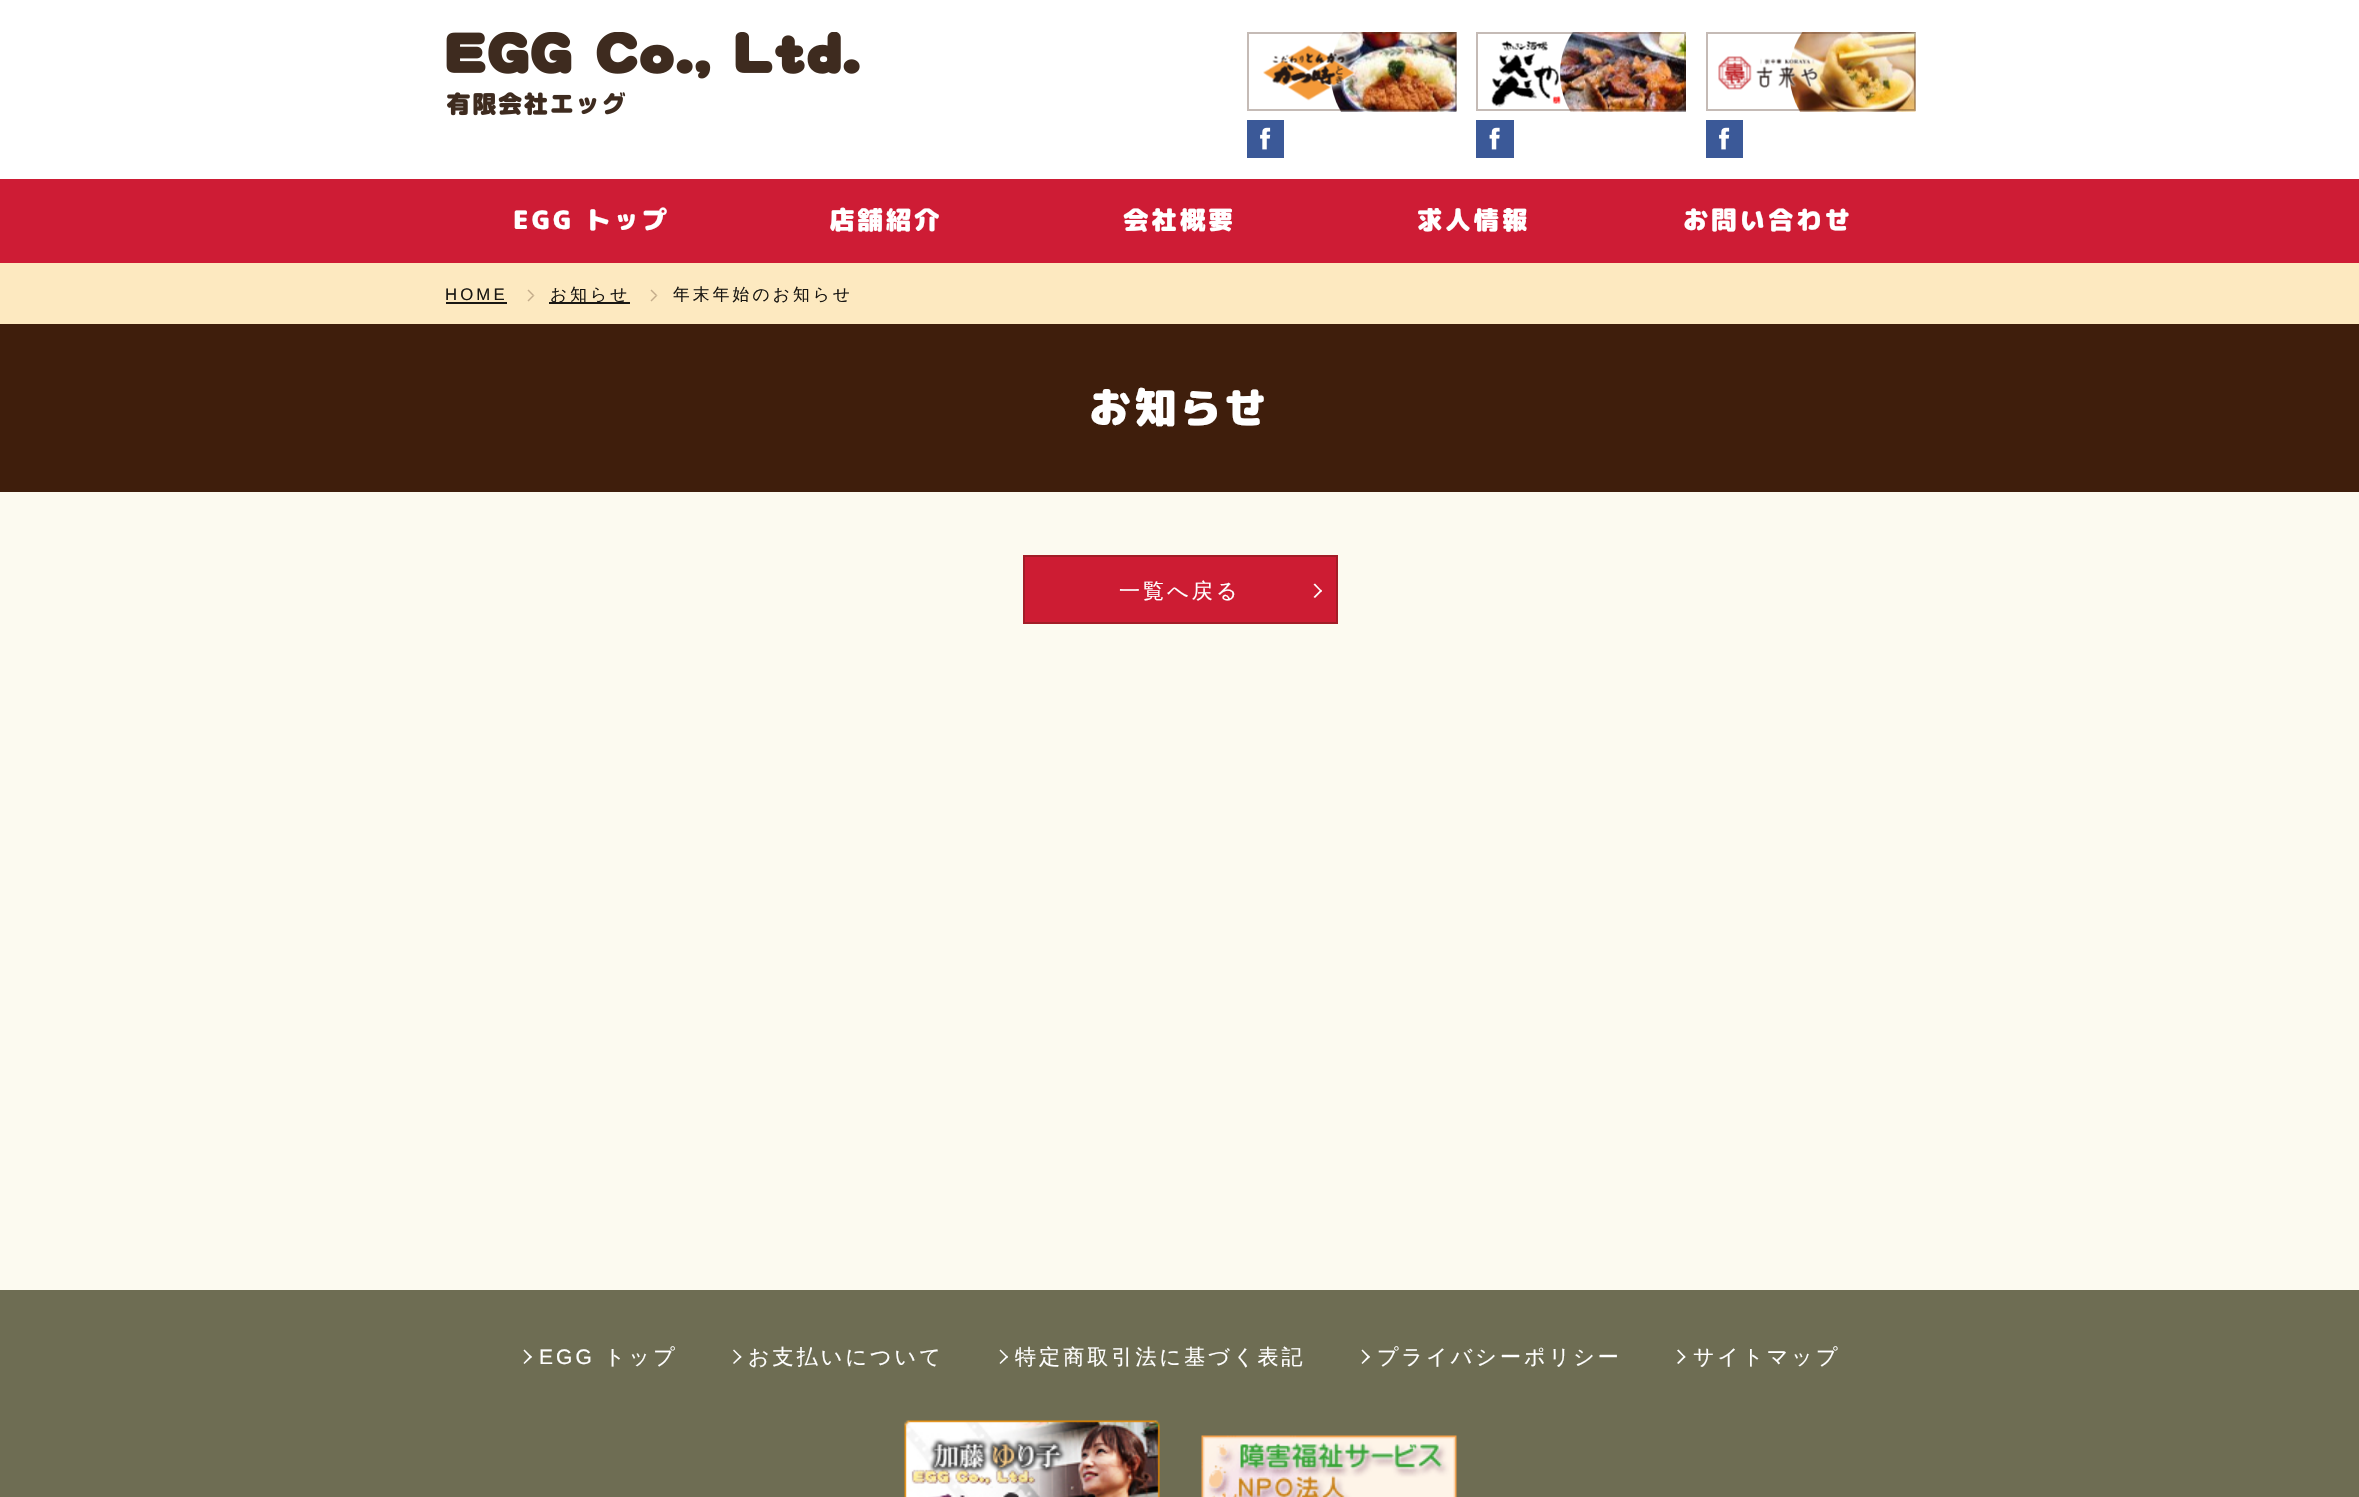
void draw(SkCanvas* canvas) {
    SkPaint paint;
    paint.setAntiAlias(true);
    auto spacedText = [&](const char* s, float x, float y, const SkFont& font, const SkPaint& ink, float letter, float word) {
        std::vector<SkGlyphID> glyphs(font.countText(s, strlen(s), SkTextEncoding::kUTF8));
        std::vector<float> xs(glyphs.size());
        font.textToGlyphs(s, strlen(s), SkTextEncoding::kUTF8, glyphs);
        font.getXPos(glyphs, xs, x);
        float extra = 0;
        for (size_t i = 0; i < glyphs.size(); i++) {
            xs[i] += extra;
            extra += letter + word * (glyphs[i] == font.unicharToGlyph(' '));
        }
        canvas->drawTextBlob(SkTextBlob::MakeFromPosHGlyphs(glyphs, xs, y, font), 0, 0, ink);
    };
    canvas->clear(0xFFFCFAF0);
    paint.setColor(0xFFFFFFFF);
    canvas->drawRect(SkRect::MakeXYWH(0, 0, 2359, 179), paint);
    canvas->drawImageRect(SkImages::DeferredFromEncodedData(SkData::MakeFromFileName("img1.png")), SkRect::MakeXYWH(446, 32, 414, 84), SkSamplingOptions());
    canvas->drawImageRect(SkImages::DeferredFromEncodedData(SkData::MakeFromFileName("img3.png")), SkRect::MakeXYWH(1331, 32, 126, 80), SkSamplingOptions());
    canvas->drawImageRect(SkImages::DeferredFromEncodedData(SkData::MakeFromFileName("img2.png")), SkRect::MakeXYWH(1263, 45, 94, 56), SkSamplingOptions());
    paint.setStyle(SkPaint::kStroke_Style);
    paint.setStrokeWidth(2);
    paint.setColor(0x4D3F1E0C);
    canvas->drawRect(SkRect::MakeXYWH(1248, 33, 208, 77), paint);
    paint.setStyle(SkPaint::kFill_Style);
    paint.setColor(0xFF3B5998);
    canvas->drawRect(SkRect::MakeXYWH(1247, 120, 37, 38), paint);
    canvas->drawImageRect(SkImages::DeferredFromEncodedData(SkData::MakeFromFileName("img4.png")), SkRect::MakeXYWH(1260, 127, 11, 23), SkSamplingOptions());
    canvas->drawImageRect(SkImages::DeferredFromEncodedData(SkData::MakeFromFileName("img6.png")), SkRect::MakeXYWH(1560, 32, 126, 80), SkSamplingOptions());
    canvas->drawImageRect(SkImages::DeferredFromEncodedData(SkData::MakeFromFileName("img5.png")), SkRect::MakeXYWH(1491, 40, 71, 68), SkSamplingOptions());
    paint.setStyle(SkPaint::kStroke_Style);
    paint.setColor(0x4D3F1E0C);
    canvas->drawRect(SkRect::MakeXYWH(1477, 33, 208, 77), paint);
    paint.setStyle(SkPaint::kFill_Style);
    paint.setColor(0xFF3B5998);
    canvas->drawRect(SkRect::MakeXYWH(1476, 120, 38, 38), paint);
    canvas->drawImageRect(SkImages::DeferredFromEncodedData(SkData::MakeFromFileName("img7.png")), SkRect::MakeXYWH(1489, 127, 11, 23), SkSamplingOptions());
    canvas->drawImageRect(SkImages::DeferredFromEncodedData(SkData::MakeFromFileName("img9.png")), SkRect::MakeXYWH(1789, 32, 127, 80), SkSamplingOptions());
    canvas->drawImageRect(SkImages::DeferredFromEncodedData(SkData::MakeFromFileName("img8.png")), SkRect::MakeXYWH(1718, 56, 101, 34), SkSamplingOptions());
    paint.setStyle(SkPaint::kStroke_Style);
    paint.setColor(0x4D3F1E0C);
    canvas->drawRect(SkRect::MakeXYWH(1707, 33, 208, 77), paint);
    paint.setStyle(SkPaint::kFill_Style);
    paint.setColor(0xFF3B5998);
    canvas->drawRect(SkRect::MakeXYWH(1706, 120, 37, 38), paint);
    canvas->drawImageRect(SkImages::DeferredFromEncodedData(SkData::MakeFromFileName("img4.png")), SkRect::MakeXYWH(1719, 127, 11, 23), SkSamplingOptions());
    paint.setColor(0xFFCE1C35);
    canvas->drawRect(SkRect::MakeXYWH(0, 179, 2359, 84), paint);
    SkFont font1(fontMgr->matchFamilyStyle("Rounded Mplus 1c", SkFontStyle(900, SkFontStyle::kNormal_Width, SkFontStyle::kUpright_Slant)), 25.25f);
    font1.setSubpixel(true);
    paint.setColor(0xFFFFFFFF);
    spacedText("EGG トップ", 513, 229, font1, paint, 3.1f, 0);
    spacedText("店舗紹介", 829, 229, font1, paint, 3.1f, 0);
    spacedText("会社概要", 1123, 229, font1, paint, 3.1f, 0);
    spacedText("求人情報", 1417, 229, font1, paint, 3.1f, 0);
    spacedText("お問い合わせ", 1683, 229, font1, paint, 3.1f, 0);
    paint.setColor(0xFFFDE9C0);
    canvas->drawRect(SkRect::MakeXYWH(0, 263, 2359, 61), paint);
    SkFont font2(fontMgr->matchFamilyStyle("Liberation Sans", SkFontStyle::Normal()), 16.75f);
    font2.setSubpixel(true);
    paint.setColor(0xFF191713);
    spacedText("HOME", 445, 300, font2, paint, 3.1f, 0);
    canvas->drawRect(SkRect::MakeXYWH(446, 302, 61, 2), paint);
    paint.setColor(0xFFC4AC8A);
    canvas->drawPath(SkPathBuilder().moveTo(528.5f, 289.5f).lineTo(534.5f, 295.5f).lineTo(532.5f, 295.5f).lineTo(527.5f, 290.5f).close().detach(), paint);
    canvas->drawPath(SkPathBuilder().moveTo(534.5f, 295.5f).lineTo(528.5f, 301.5f).lineTo(527.5f, 300.5f).lineTo(532.5f, 295.5f).close().detach(), paint);
    paint.setColor(0xFF191713);
    canvas->drawRect(SkRect::MakeXYWH(549, 302, 81, 2), paint);
    SkFont font3(fontMgr->matchFamilyStyle("WenQuanYi Zen Hei", SkFontStyle(500, SkFontStyle::kNormal_Width, SkFontStyle::kUpright_Slant)), 16.75f);
    font3.setSubpixel(true);
    spacedText("お知らせ", 550, 300, font3, paint, 3.1f, 0);
    paint.setColor(0xFFC4AC8A);
    canvas->drawPath(SkPathBuilder().moveTo(651.5f, 289.5f).lineTo(657.5f, 295.5f).lineTo(655.5f, 295.5f).lineTo(650.5f, 290.5f).close().detach(), paint);
    canvas->drawPath(SkPathBuilder().moveTo(657.5f, 295.5f).lineTo(651.5f, 301.5f).lineTo(650.5f, 300.5f).lineTo(655.5f, 295.5f).close().detach(), paint);
    paint.setColor(0xFF191713);
    spacedText("年末年始のお知らせ", 673, 300, font3, paint, 3.1f, 0);
    paint.setColor(0xFF3F1E0C);
    canvas->drawRect(SkRect::MakeXYWH(0, 324, 2359, 168), paint);
    SkFont font4(fontMgr->matchFamilyStyle("Rounded Mplus 1c", SkFontStyle(900, SkFontStyle::kNormal_Width, SkFontStyle::kUpright_Slant)), 42);
    font4.setSubpixel(true);
    paint.setColor(0xFFFFFFFF);
    spacedText("お知らせ", 1089, 423, font4, paint, 3.1f, 0);
    paint.setColor(0xFFCD1C33);
    canvas->drawRect(SkRect::MakeXYWH(1024, 556, 313, 67), paint);
    paint.setStyle(SkPaint::kStroke_Style);
    paint.setColor(0xFFA21D27);
    canvas->drawRect(SkRect::MakeXYWH(1024, 556, 313, 67), paint);
    SkFont font5(fontMgr->matchFamilyStyle("WenQuanYi Zen Hei", SkFontStyle(500, SkFontStyle::kNormal_Width, SkFontStyle::kUpright_Slant)), 21);
    font5.setSubpixel(true);
    paint.setStyle(SkPaint::kFill_Style);
    paint.setColor(0xFFFFFFFF);
    spacedText("一覧へ戻る", 1119, 598, font5, paint, 3.1f, 0);
    canvas->drawPath(SkPathBuilder().moveTo(1315, 583.5f).lineTo(1322, 591).lineTo(1321, 592).lineTo(1313.5f, 584.5f).close().detach(), paint);
    canvas->drawPath(SkPathBuilder().moveTo(1321, 589.5f).lineTo(1322, 591).lineTo(1315, 598).lineTo(1313.5f, 597).close().detach(), paint);
    paint.setColor(0xFF6E6D53);
    canvas->drawRect(SkRect::MakeXYWH(0, 1290, 2359, 207), paint);
    paint.setColor(0xFFFFFFFF);
    canvas->drawPath(SkPathBuilder().moveTo(524.5f, 1349.5f).lineTo(532, 1357).lineTo(530.5f, 1358).lineTo(523.5f, 1350.5f).close().detach(), paint);
    canvas->drawPath(SkPathBuilder().moveTo(530.5f, 1355.5f).lineTo(532, 1357).lineTo(524.5f, 1364).lineTo(523.5f, 1363).close().detach(), paint);
    SkFont font6(fontMgr->matchFamilyStyle("Liberation Sans", SkFontStyle::Normal()), 21);
    font6.setSubpixel(true);
    spacedText("EGG", 539, 1364, font6, paint, 3.1f, 0);
    spacedText("トップ", 604, 1364, font5, paint, 3.1f, 0);
    canvas->drawPath(SkPathBuilder().moveTo(734, 1349.5f).lineTo(741.5f, 1357).lineTo(740.5f, 1358).lineTo(733, 1350.5f).close().detach(), paint);
    canvas->drawPath(SkPathBuilder().moveTo(740.5f, 1355.5f).lineTo(741.5f, 1357).lineTo(734, 1364).lineTo(733, 1363).close().detach(), paint);
    spacedText("お支払いについて", 748, 1364, font5, paint, 3.1f, 0);
    canvas->drawPath(SkPathBuilder().moveTo(1000.5f, 1349.5f).lineTo(1008, 1357).lineTo(1007, 1358).lineTo(999.5f, 1350.5f).close().detach(), paint);
    canvas->drawPath(SkPathBuilder().moveTo(1007, 1355.5f).lineTo(1008, 1357).lineTo(1000.5f, 1364).lineTo(999.5f, 1363).close().detach(), paint);
    spacedText("特定商取引法に基づく表記", 1015, 1364, font5, paint, 3.1f, 0);
    canvas->drawPath(SkPathBuilder().moveTo(1362.5f, 1349.5f).lineTo(1370, 1357).lineTo(1368.5f, 1358).lineTo(1361.5f, 1350.5f).close().detach(), paint);
    canvas->drawPath(SkPathBuilder().moveTo(1368.5f, 1355.5f).lineTo(1370, 1357).lineTo(1362.5f, 1364).lineTo(1361.5f, 1363).close().detach(), paint);
    spacedText("プライバシーポリシー", 1377, 1364, font5, paint, 3.1f, 0);
    canvas->drawPath(SkPathBuilder().moveTo(1678.5f, 1349.5f).lineTo(1685.5f, 1357).lineTo(1684.5f, 1358).lineTo(1677, 1350.5f).close().detach(), paint);
    canvas->drawPath(SkPathBuilder().moveTo(1684.5f, 1355.5f).lineTo(1685.5f, 1357).lineTo(1678.5f, 1364).lineTo(1677, 1363).close().detach(), paint);
    spacedText("サイトマップ", 1693, 1364, font5, paint, 3.1f, 0);
    canvas->drawImageRect(SkImages::DeferredFromEncodedData(SkData::MakeFromFileName("img10.png")), SkRect::MakeXYWH(904, 1420, 256, 77), SkSamplingOptions());
    canvas->drawImageRect(SkImages::DeferredFromEncodedData(SkData::MakeFromFileName("img11.png")), SkRect::MakeXYWH(1201, 1435, 256, 62), SkSamplingOptions());
}
